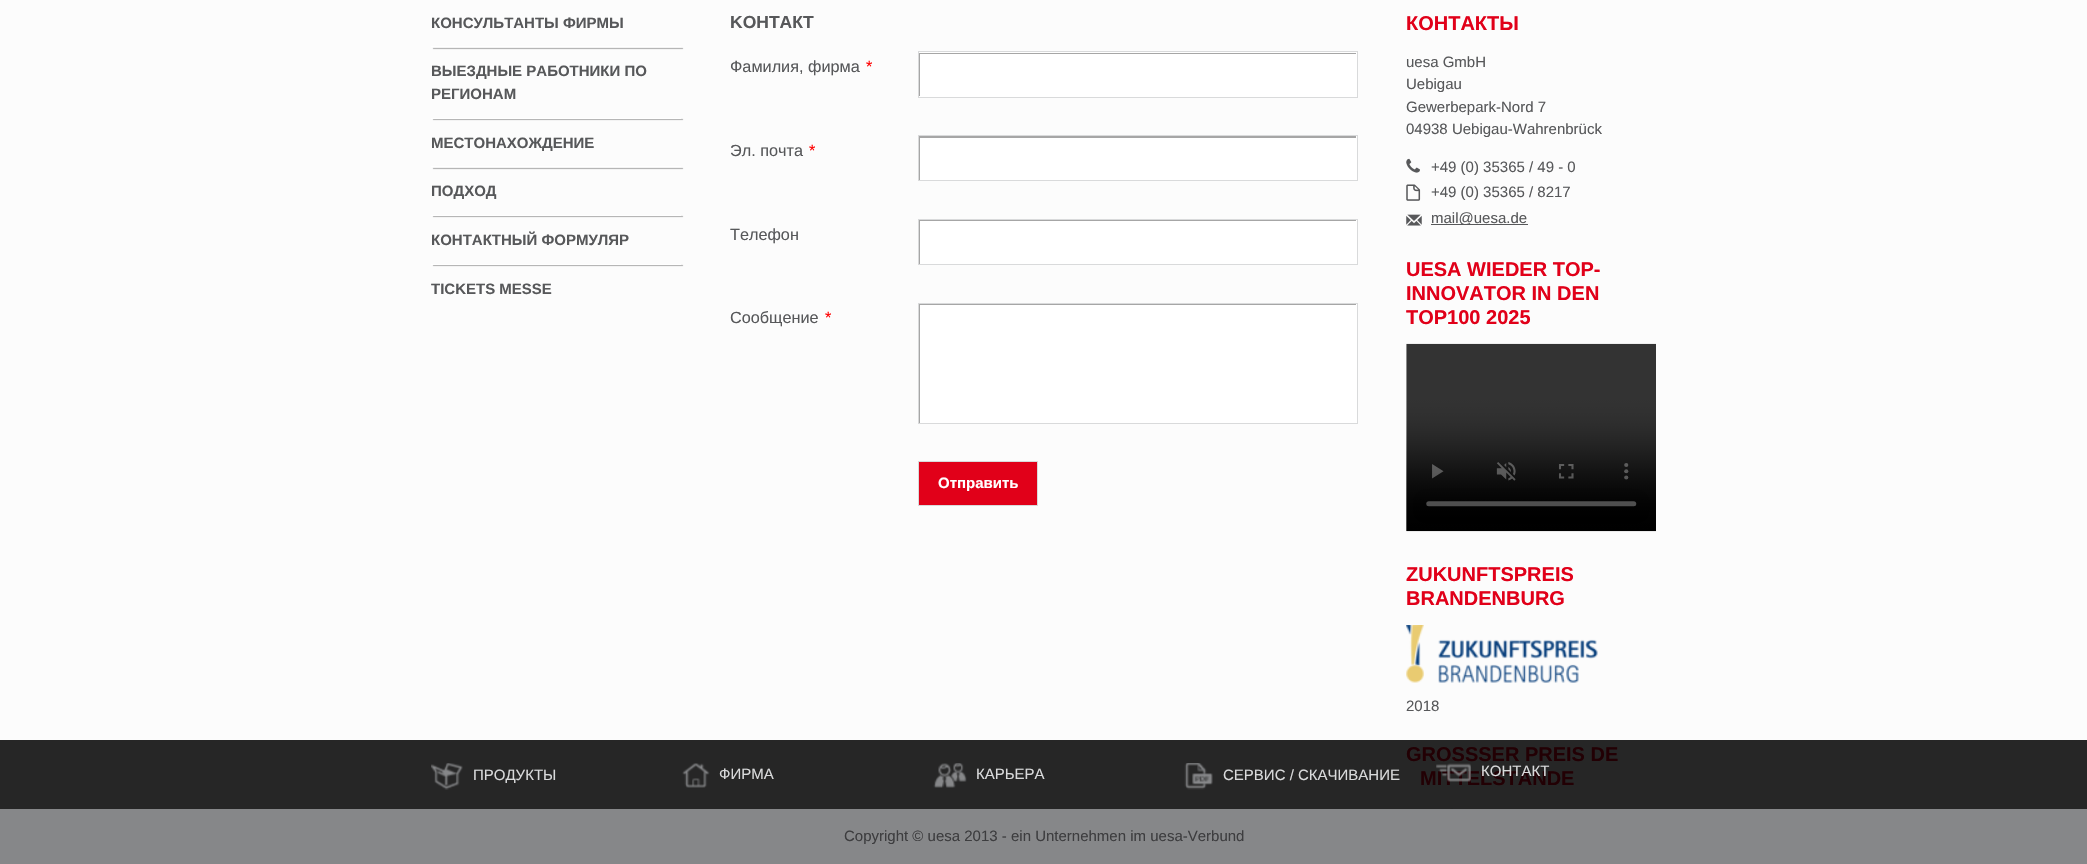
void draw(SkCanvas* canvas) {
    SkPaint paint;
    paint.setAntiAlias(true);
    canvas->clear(0xFFFCFCFC);
    paint.setColor(0xFF262626);
    canvas->drawRect(SkRect::MakeXYWH(0, 740, 2087, 69), paint);
    SkFont font1(fontMgr->matchFamilyStyle("Liberation Sans", SkFontStyle::Bold()), 15);
    font1.setSubpixel(true);
    paint.setColor(0xFF57585A);
    canvas->drawString("КОНСУЛЬТАНТЫ ФИРМЫ", 431, 28, font1, paint);
    paint.setColor(0x59000000);
    paint.setMaskFilter(SkMaskFilter::MakeBlur(kNormal_SkBlurStyle, 0.5f));
    canvas->drawRect(SkRect::MakeXYWH(433, 48, 250, 1), paint);
    paint.setMaskFilter(nullptr);
    paint.setColor(0xFFFFFFFF);
    canvas->drawRect(SkRect::MakeXYWH(431, 46, 250, 1), paint);
    paint.setColor(0xFF57585A);
    canvas->drawString("ВЫЕЗДНЫЕ РАБОТНИКИ ПО", 431, 76, font1, paint);
    canvas->drawString("РЕГИОНАМ", 431, 99, font1, paint);
    paint.setColor(0x59000000);
    paint.setMaskFilter(SkMaskFilter::MakeBlur(kNormal_SkBlurStyle, 0.5f));
    canvas->drawRect(SkRect::MakeXYWH(433, 119, 250, 1), paint);
    paint.setMaskFilter(nullptr);
    paint.setColor(0xFFFFFFFF);
    canvas->drawRect(SkRect::MakeXYWH(431, 118, 250, 1), paint);
    paint.setColor(0xFF57585A);
    canvas->drawString("МЕСТОНАХОЖДЕНИЕ", 431, 148, font1, paint);
    paint.setColor(0x59000000);
    paint.setMaskFilter(SkMaskFilter::MakeBlur(kNormal_SkBlurStyle, 0.5f));
    canvas->drawRect(SkRect::MakeXYWH(433, 168, 250, 1), paint);
    paint.setMaskFilter(nullptr);
    paint.setColor(0xFFFFFFFF);
    canvas->drawRect(SkRect::MakeXYWH(431, 166, 250, 1), paint);
    paint.setColor(0xFF57585A);
    canvas->drawString("ПОДХОД", 431, 196, font1, paint);
    paint.setColor(0x59000000);
    paint.setMaskFilter(SkMaskFilter::MakeBlur(kNormal_SkBlurStyle, 0.5f));
    canvas->drawRect(SkRect::MakeXYWH(433, 216, 250, 1), paint);
    paint.setMaskFilter(nullptr);
    paint.setColor(0xFFFFFFFF);
    canvas->drawRect(SkRect::MakeXYWH(431, 215, 250, 1), paint);
    paint.setColor(0xFF57585A);
    canvas->drawString("КОНТАКТНЫЙ ФОРМУЛЯР", 431, 245, font1, paint);
    paint.setColor(0x59000000);
    paint.setMaskFilter(SkMaskFilter::MakeBlur(kNormal_SkBlurStyle, 0.5f));
    canvas->drawRect(SkRect::MakeXYWH(433, 265, 250, 1), paint);
    paint.setMaskFilter(nullptr);
    paint.setColor(0xFFFFFFFF);
    canvas->drawRect(SkRect::MakeXYWH(431, 264, 250, 1), paint);
    paint.setColor(0xFF57585A);
    canvas->drawString("TICKETS MESSE", 431, 294, font1, paint);
    SkFont font2(fontMgr->matchFamilyStyle("Liberation Sans", SkFontStyle::Bold()), 17.5f);
    font2.setSubpixel(true);
    canvas->drawString("KОНТАКТ", 730, 28, font2, paint);
    SkFont font3(fontMgr->matchFamilyStyle("Liberation Sans", SkFontStyle::Normal()), 16.25f);
    font3.setSubpixel(true);
    canvas->drawString("Фамилия, фирма", 730, 72, font3, paint);
    paint.setColor(0xFFFF0000);
    canvas->drawString("*", 866, 72, font3, paint);
    paint.setColor(0xFFFFFFFF);
    canvas->drawRect(SkRect::MakeXYWH(919, 52, 438, 45), paint);
    canvas->save();
    canvas->clipRect(SkRect::MakeXYWH(919, 53, 437, 43));
    paint.setColor(0xFFA6A6A6);
    canvas->drawPath(SkPathBuilder(SkPathFillType::kEvenOdd).moveTo(795, -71).lineTo(1480, -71).lineTo(1480, 220).lineTo(795, 220).close().moveTo(920, 54).lineTo(1358, 54).lineTo(1358, 98).lineTo(920, 98).close().detach(), paint);
    canvas->restore();
    paint.setStyle(SkPaint::kStroke_Style);
    paint.setStrokeWidth(1);
    paint.setColor(0xFFD9DADB);
    canvas->drawRect(SkRect::MakeXYWH(918.5f, 51.5f, 439, 46), paint);
    paint.setStyle(SkPaint::kFill_Style);
    paint.setColor(0xFF57585A);
    canvas->drawString("Эл. почта", 730, 156, font3, paint);
    paint.setColor(0xFFFF0000);
    canvas->drawString("*", 809, 156, font3, paint);
    paint.setColor(0xFFFFFFFF);
    canvas->drawRect(SkRect::MakeXYWH(920, 136, 437, 44), paint);
    canvas->save();
    canvas->clipRect(SkRect::MakeXYWH(919, 136, 437, 44));
    paint.setColor(0xFFA6A6A6);
    canvas->drawPath(SkPathBuilder(SkPathFillType::kEvenOdd).moveTo(795, 12).lineTo(1480, 12).lineTo(1480, 304).lineTo(795, 304).close().moveTo(920, 138).lineTo(1358, 138).lineTo(1358, 181).lineTo(920, 181).close().detach(), paint);
    canvas->restore();
    paint.setStyle(SkPaint::kStroke_Style);
    paint.setColor(0xFFD9DADB);
    canvas->drawRect(SkRect::MakeXYWH(918.5f, 135.5f, 439, 45), paint);
    paint.setStyle(SkPaint::kFill_Style);
    paint.setColor(0xFF57585A);
    canvas->drawString("Телефон", 730, 240, font3, paint);
    paint.setColor(0xFFFFFFFF);
    canvas->drawRect(SkRect::MakeXYWH(920, 220, 437, 44), paint);
    canvas->save();
    canvas->clipRect(SkRect::MakeXYWH(919, 220, 437, 44));
    paint.setColor(0xFFA6A6A6);
    canvas->drawPath(SkPathBuilder(SkPathFillType::kEvenOdd).moveTo(795, 96).lineTo(1480, 96).lineTo(1480, 388).lineTo(795, 388).close().moveTo(920, 221).lineTo(1358, 221).lineTo(1358, 265).lineTo(920, 265).close().detach(), paint);
    canvas->restore();
    paint.setStyle(SkPaint::kStroke_Style);
    paint.setColor(0xFFD9DADB);
    canvas->drawRect(SkRect::MakeXYWH(918.5f, 219.5f, 439, 45), paint);
    paint.setStyle(SkPaint::kFill_Style);
    paint.setColor(0xFF57585A);
    canvas->drawString("Сообщение", 730, 323, font3, paint);
    paint.setColor(0xFFFF0000);
    canvas->drawString("*", 825, 323, font3, paint);
    paint.setColor(0xFFFFFFFF);
    canvas->drawRect(SkRect::MakeXYWH(920, 304, 437, 119), paint);
    canvas->save();
    canvas->clipRect(SkRect::MakeXYWH(919, 304, 437, 119));
    paint.setColor(0xFFA6A6A6);
    canvas->drawPath(SkPathBuilder(SkPathFillType::kEvenOdd).moveTo(795, 180).lineTo(1480, 180).lineTo(1480, 546).lineTo(795, 546).close().moveTo(920, 305).lineTo(1358, 305).lineTo(1358, 424).lineTo(920, 424).close().detach(), paint);
    canvas->restore();
    paint.setStyle(SkPaint::kStroke_Style);
    paint.setColor(0xFFD9DADB);
    canvas->drawRect(SkRect::MakeXYWH(918.5f, 303.5f, 439, 120), paint);
    paint.setStyle(SkPaint::kFill_Style);
    paint.setColor(0xFFE10019);
    canvas->drawRect(SkRect::MakeXYWH(918.5f, 461.5f, 119, 44), paint);
    paint.setStyle(SkPaint::kStroke_Style);
    paint.setColor(0xFFD9DADB);
    canvas->drawRect(SkRect::MakeXYWH(918.5f, 461.5f, 119, 44), paint);
    paint.setStyle(SkPaint::kFill_Style);
    paint.setColor(0xFFFFFFFF);
    canvas->drawString("Отправить", 938, 488, font1, paint);
    SkFont font4(fontMgr->matchFamilyStyle("Liberation Sans", SkFontStyle::Bold()), 20);
    font4.setSubpixel(true);
    paint.setColor(0xFFE10019);
    canvas->drawString("КОНТАКТЫ", 1406, 30, font4, paint);
    SkFont font5(fontMgr->matchFamilyStyle("Liberation Sans", SkFontStyle::Normal()), 15);
    font5.setSubpixel(true);
    paint.setColor(0xFF57585A);
    canvas->drawString("uesa GmbH", 1406, 67, font5, paint);
    canvas->drawString("Uebigau", 1406, 89, font5, paint);
    canvas->drawString("Gewerbepark-Nord 7", 1406, 112, font5, paint);
    canvas->drawString("04938 Uebigau-Wahrenbrück", 1406, 134, font5, paint);
    canvas->drawImageRect(SkImages::DeferredFromEncodedData(SkData::MakeFromFileName("img1.png")), SkRect::MakeXYWH(1406, 158, 14, 15), SkSamplingOptions());
    canvas->drawString("+49 (0) 35365 / 49 - 0", 1431, 172, font5, paint);
    canvas->drawImageRect(SkImages::DeferredFromEncodedData(SkData::MakeFromFileName("img2.png")), SkRect::MakeXYWH(1406, 184, 15, 17), SkSamplingOptions());
    canvas->drawString("+49 (0) 35365 / 8217", 1431, 197, font5, paint);
    canvas->drawImageRect(SkImages::DeferredFromEncodedData(SkData::MakeFromFileName("img3.png")), SkRect::MakeXYWH(1406, 214, 16, 12), SkSamplingOptions());
    canvas->drawRect(SkRect::MakeXYWH(1431, 224, 97, 1), paint);
    canvas->drawString("mail@uesa.de", 1431, 223, font5, paint);
    paint.setColor(0xFFE10019);
    canvas->drawString("UESA WIEDER TOP-", 1406, 276, font4, paint);
    canvas->drawString("INNOVATOR IN DEN", 1406, 300, font4, paint);
    canvas->drawString("TOP100 2025", 1406, 324, font4, paint);
    canvas->drawImageRect(SkImages::DeferredFromEncodedData(SkData::MakeFromFileName("img4.png")), SkRect::MakeXYWH(1406, 343, 250, 189), SkSamplingOptions());
    canvas->drawString("ZUKUNFTSPREIS", 1406, 581, font4, paint);
    canvas->drawString("BRANDENBURG", 1406, 605, font4, paint);
    canvas->drawImageRect(SkImages::DeferredFromEncodedData(SkData::MakeFromFileName("img5.png")), SkRect::MakeXYWH(1406, 625, 192, 58), SkSamplingOptions());
    paint.setColor(0xFF57585A);
    canvas->drawString("2018", 1406, 711, font5, paint);
    paint.setColor(0xFF220004);
    canvas->drawString("GROSSSER PREIS DE", 1406, 761, font4, paint);
    canvas->drawString("MITTELSTANDE", 1420, 785, font4, paint);
    canvas->drawImageRect(SkImages::DeferredFromEncodedData(SkData::MakeFromFileName("img6.png")), SkRect::MakeXYWH(1421, 808, 35, 1), SkSamplingOptions());
    canvas->drawImageRect(SkImages::DeferredFromEncodedData(SkData::MakeFromFileName("img7.png")), SkRect::MakeXYWH(431, 763, 32, 27), SkSamplingOptions());
    paint.setColor(0xFFD9DADB);
    canvas->drawString("ПРОДУКТЫ", 473, 780, font5, paint);
    canvas->drawImageRect(SkImages::DeferredFromEncodedData(SkData::MakeFromFileName("img8.png")), SkRect::MakeXYWH(682, 763, 28, 25), SkSamplingOptions());
    canvas->drawString("ФИРМА", 719, 779, font5, paint);
    canvas->drawImageRect(SkImages::DeferredFromEncodedData(SkData::MakeFromFileName("img9.png")), SkRect::MakeXYWH(933, 763, 34, 25), SkSamplingOptions());
    canvas->drawString("КАРЬЕРА", 976, 779, font5, paint);
    canvas->drawImageRect(SkImages::DeferredFromEncodedData(SkData::MakeFromFileName("img10.png")), SkRect::MakeXYWH(1184, 763, 29, 27), SkSamplingOptions());
    canvas->drawString("СЕРВИС / СКАЧИВАНИЕ", 1223, 780, font5, paint);
    canvas->drawImageRect(SkImages::DeferredFromEncodedData(SkData::MakeFromFileName("img11.png")), SkRect::MakeXYWH(1436, 763, 35, 19), SkSamplingOptions());
    canvas->drawString("КОНТАКТ", 1481, 776, font5, paint);
    paint.setColor(0xFF868789);
    canvas->drawRect(SkRect::MakeXYWH(0, 809, 2087, 55), paint);
    paint.setColor(0xFF3D3D3F);
    canvas->drawString("Copyright © uesa 2013 - ein Unternehmen im uesa-Verbund", 844, 841, font5, paint);
}
